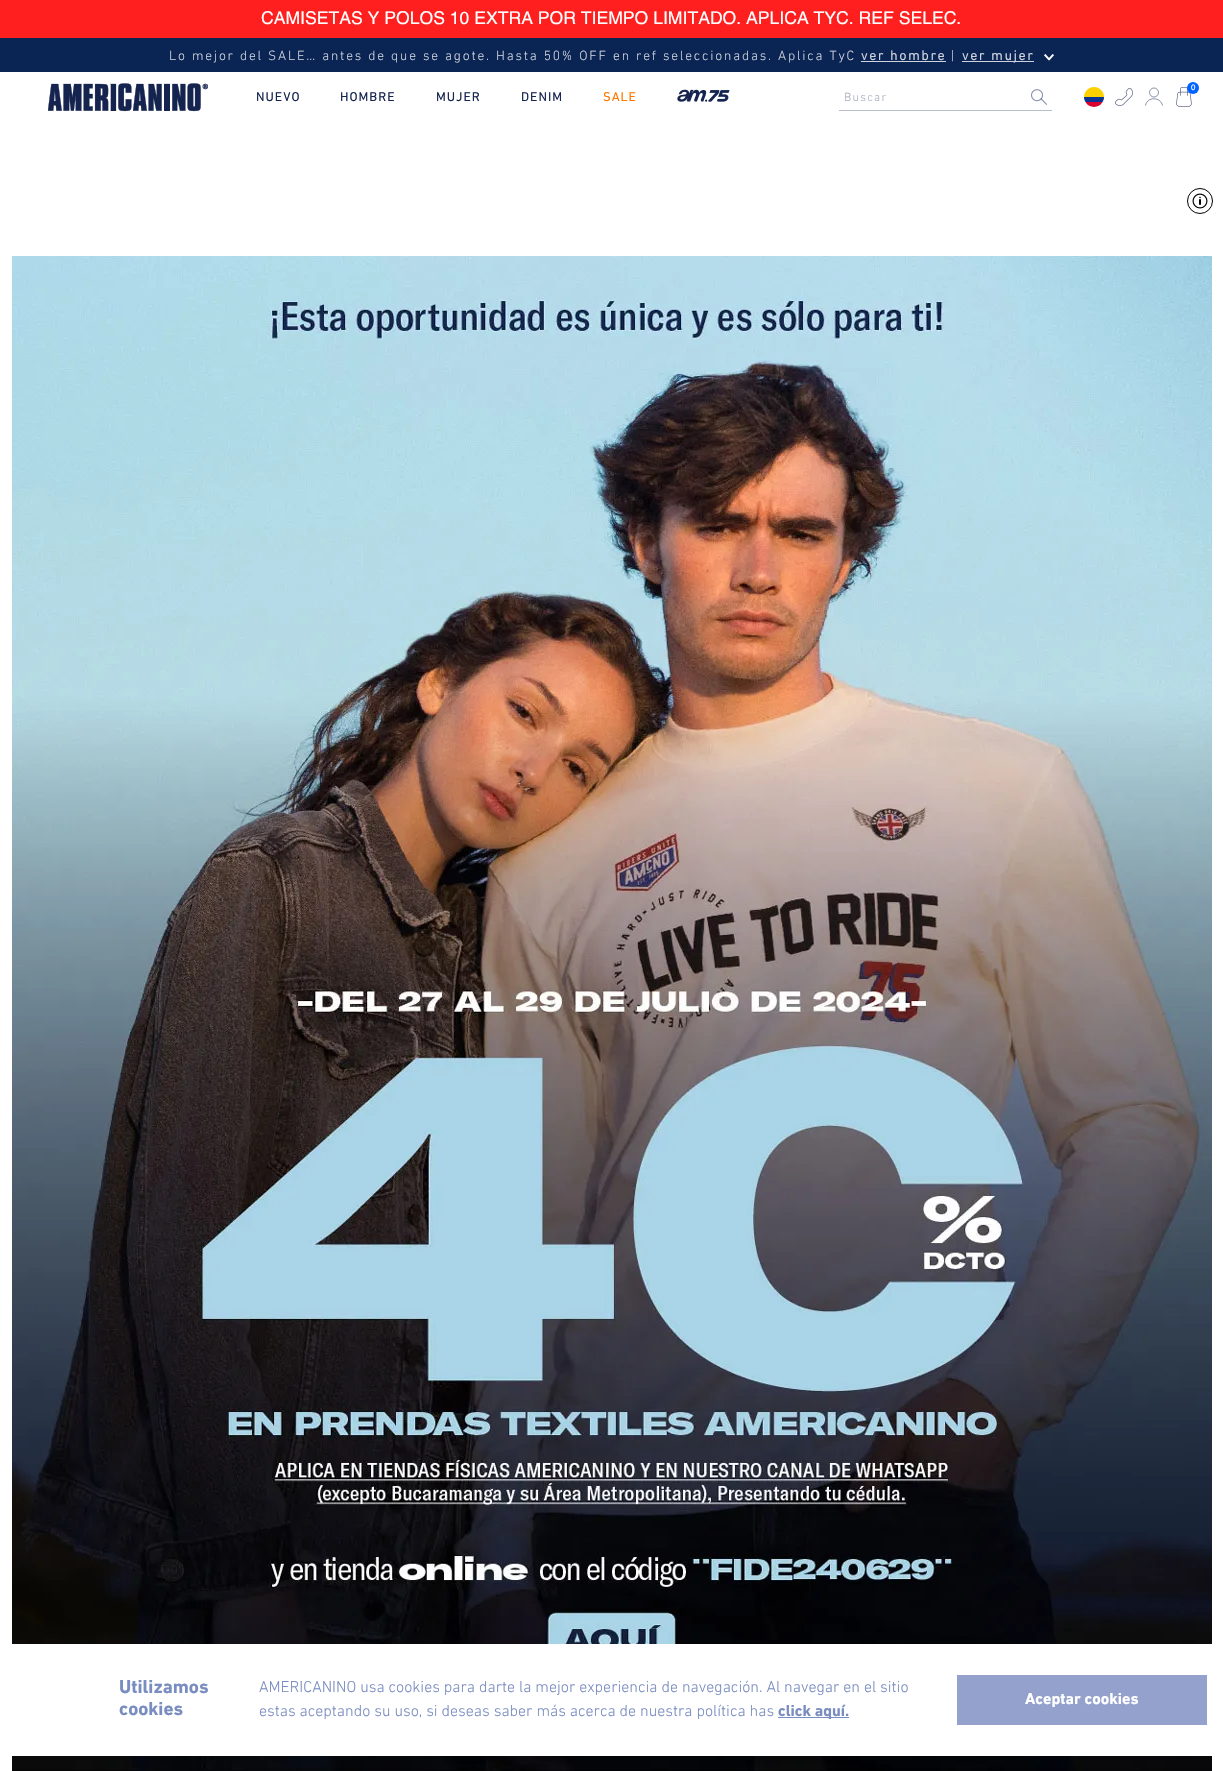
void draw(SkCanvas* canvas) {
    SkPaint paint;
    paint.setAntiAlias(true);
    auto spacedText = [&](const char* s, float x, float y, const SkFont& font, const SkPaint& ink, float letter, float word) {
        std::vector<SkGlyphID> glyphs(font.countText(s, strlen(s), SkTextEncoding::kUTF8));
        std::vector<float> xs(glyphs.size());
        font.textToGlyphs(s, strlen(s), SkTextEncoding::kUTF8, glyphs);
        font.getXPos(glyphs, xs, x);
        float extra = 0;
        for (size_t i = 0; i < glyphs.size(); i++) {
            xs[i] += extra;
            extra += letter + word * (glyphs[i] == font.unicharToGlyph(' '));
        }
        canvas->drawTextBlob(SkTextBlob::MakeFromPosHGlyphs(glyphs, xs, y, font), 0, 0, ink);
    };
    canvas->clear(0xFFFFFFFF);
    paint.setColor(0xFFFF1F1F);
    canvas->drawRect(SkRect::MakeXYWH(0, 0, 1223, 38), paint);
    SkFont font1(fontMgr->matchFamilyStyle("Helvetica", SkFontStyle::Normal()), 17.6f);
    font1.setSubpixel(true);
    paint.setColor(0xFFFFFFFF);
    canvas->drawString("CAMISETAS Y POLOS 10 EXTRA POR TIEMPO LIMITADO. APLICA TYC. REF SELEC.", 261, 24, font1, paint);
    paint.setColor(0xFF0A2454);
    canvas->drawRect(SkRect::MakeXYWH(0, 38, 1223, 34), paint);
    SkFont font2(fontMgr->matchFamilyStyle("DIN Next", SkFontStyle(300, SkFontStyle::kNormal_Width, SkFontStyle::kUpright_Slant)), 13.6f);
    font2.setSubpixel(true);
    paint.setColor(0xFFCED3DD);
    spacedText("Lo mejor del SALE… antes de que se agote. Hasta 50% OFF en ref seleccionadas. Aplica TyC", 169, 60, font2, paint, 1.8f, 0);
    SkFont font3(fontMgr->matchFamilyStyle("DIN Next", SkFontStyle::Bold()), 13.6f);
    font3.setSubpixel(true);
    spacedText("ver hombre", 861, 60, font3, paint, 1.8f, 0);
    canvas->drawRect(SkRect::MakeXYWH(861, 61, 85, 1), paint);
    spacedText("|", 951, 60, font2, paint, 1.8f, 0);
    canvas->drawRect(SkRect::MakeXYWH(962, 61, 72, 1), paint);
    spacedText("ver mujer", 962, 60, font3, paint, 1.8f, 0);
    canvas->drawImageRect(SkImages::DeferredFromEncodedData(SkData::MakeFromFileName("img1.png")), SkRect::MakeXYWH(1044, 54, 10, 7), SkSamplingOptions());
    canvas->drawImageRect(SkImages::DeferredFromEncodedData(SkData::MakeFromFileName("img2.png")), SkRect::MakeXYWH(48, 83, 160, 29), SkSamplingOptions());
    SkFont font4(fontMgr->matchFamilyStyle("DIN Next", SkFontStyle::Normal()), 13);
    font4.setSubpixel(true);
    paint.setColor(0xFF15244F);
    spacedText("NUEVO", 256, 101, font4, paint, 1, 0);
    spacedText("HOMBRE", 340, 101, font4, paint, 1, 0);
    spacedText("MUJER", 436, 101, font4, paint, 1, 0);
    spacedText("DENIM", 521, 101, font4, paint, 1, 0);
    paint.setColor(0xFFFF7900);
    spacedText("SALE", 603, 101, font4, paint, 1, 0);
    canvas->drawImageRect(SkImages::DeferredFromEncodedData(SkData::MakeFromFileName("img3.png")), SkRect::MakeXYWH(677, 89, 53, 13), SkSamplingOptions());
    paint.setColor(0xFFFFD000);
    canvas->drawPath(SkPathBuilder().moveTo(1094, 87).cubicTo(1099.5f, 87, 1104, 91.5f, 1104, 97).lineTo(1084, 97).cubicTo(1084, 91.5f, 1088.5f, 87, 1094, 87).close().detach(), paint);
    paint.setColor(0xFF0C3392);
    canvas->drawPath(SkPathBuilder().moveTo(1085.5f, 102).cubicTo(1084.5f, 100.5f, 1084, 99, 1084, 97).lineTo(1104, 97).cubicTo(1104, 99, 1103.5f, 100.5f, 1102.5f, 102).close().detach(), paint);
    paint.setColor(0xFFDB002D);
    canvas->drawPath(SkPathBuilder().moveTo(1102.5f, 102).cubicTo(1099, 108.5f, 1089, 108.5f, 1085.5f, 102).close().detach(), paint);
    canvas->drawImageRect(SkImages::DeferredFromEncodedData(SkData::MakeFromFileName("img4.png")), SkRect::MakeXYWH(1115, 88, 18, 18), SkSamplingOptions());
    paint.setStyle(SkPaint::kStroke_Style);
    paint.setStrokeWidth(0.6f);
    paint.setColor(0xFF384569);
    canvas->drawCircle(1154, 92.5f, 4.5f, paint);
    canvas->drawPath(SkPathBuilder().moveTo(1145.5f, 105.5f).cubicTo(1147, 96.5f, 1160.5f, 96.5f, 1162.5f, 105.5f).detach(), paint);
    canvas->drawImageRect(SkImages::DeferredFromEncodedData(SkData::MakeFromFileName("img5.png")), SkRect::MakeXYWH(1176, 87, 16, 20), SkSamplingOptions());
    paint.setStyle(SkPaint::kFill_Style);
    paint.setColor(0xFF0062FF);
    canvas->drawCircle(1193, 88, 6, paint);
    SkFont font5(fontMgr->matchFamilyStyle("Helvetica", SkFontStyle::Normal()), 8);
    font5.setSubpixel(true);
    paint.setColor(0xFFFFFFFF);
    canvas->drawString("0", 1191, 90, font5, paint);
    SkFont font6(fontMgr->matchFamilyStyle("DIN Next", SkFontStyle(300, SkFontStyle::kNormal_Width, SkFontStyle::kUpright_Slant)), 12);
    font6.setSubpixel(true);
    paint.setColor(0xFFABB0C0);
    spacedText("Buscar", 844, 101, font6, paint, 1.25f, 0);
    canvas->drawImageRect(SkImages::DeferredFromEncodedData(SkData::MakeFromFileName("img6.png")), SkRect::MakeXYWH(1031, 89, 16, 16), SkSamplingOptions());
    paint.setColor(0x4D15244F);
    canvas->drawRect(SkRect::MakeXYWH(839, 110, 213, 1), paint);
    paint.setStyle(SkPaint::kStroke_Style);
    paint.setStrokeWidth(1);
    paint.setColor(0xFF000000);
    canvas->drawCircle(1200, 201, 12.5f, paint);
    canvas->drawImageRect(SkImages::DeferredFromEncodedData(SkData::MakeFromFileName("img7.png")), SkRect::MakeXYWH(1192, 193, 16, 16), SkSamplingOptions());
    canvas->drawImageRect(SkImages::DeferredFromEncodedData(SkData::MakeFromFileName("img8.png")), SkRect::MakeXYWH(12, 256, 1200, 1515), SkSamplingOptions());
    paint.setStyle(SkPaint::kFill_Style);
    paint.setColor(0xFFFFFFFF);
    canvas->drawRect(SkRect::MakeXYWH(12, 1644, 1200, 112), paint);
    SkFont font7(fontMgr->matchFamilyStyle("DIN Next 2", SkFontStyle::Bold()), 19);
    font7.setSubpixel(true);
    paint.setColor(0xFF7A8DC0);
    canvas->drawString("Utilizamos", 119, 1693, font7, paint);
    canvas->drawString("cookies", 119, 1715, font7, paint);
    SkFont font8(fontMgr->matchFamilyStyle("DIN Next", SkFontStyle(300, SkFontStyle::kNormal_Width, SkFontStyle::kUpright_Slant)), 16);
    font8.setSubpixel(true);
    canvas->drawString("AMERICANINO usa cookies para darte la mejor experiencia de navegación. Al navegar en el sitio", 259, 1692, font8, paint);
    canvas->drawString("estas aceptando su uso, si deseas saber más acerca de nuestra política has", 259, 1716, font8, paint);
    canvas->drawRect(SkRect::MakeXYWH(778, 1717, 71, 1), paint);
    SkFont font9(fontMgr->matchFamilyStyle("DIN Next 2", SkFontStyle::Bold()), 16);
    font9.setSubpixel(true);
    canvas->drawString("click aquí.", 778, 1716, font9, paint);
    paint.setColor(0xFF93A1CC);
    canvas->drawRect(SkRect::MakeXYWH(957, 1675, 250, 50), paint);
    paint.setColor(0xFFFFFFFF);
    canvas->drawString("Aceptar cookies", 1025, 1704, font9, paint);
}
